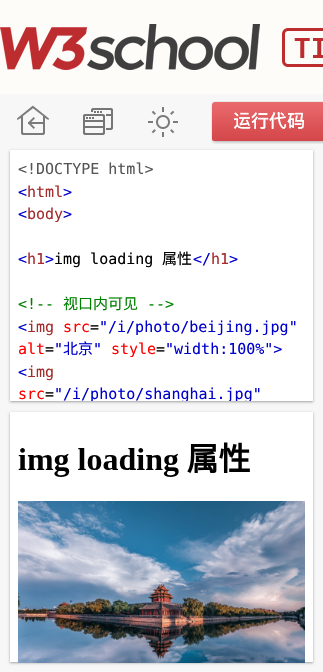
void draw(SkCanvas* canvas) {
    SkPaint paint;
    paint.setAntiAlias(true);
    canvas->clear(0xFFFDFCF8);
    canvas->drawImageRect(SkImages::DeferredFromEncodedData(SkData::MakeFromFileName("img1.png")), SkRect::MakeXYWH(0, 24, 323, 46), SkSamplingOptions());
    paint.setColor(0xFFF7F7F7);
    canvas->drawRect(SkRect::MakeXYWH(0, 94, 323, 578), paint);
    canvas->drawImageRect(SkImages::DeferredFromEncodedData(SkData::MakeFromFileName("img2.png")), SkRect::MakeXYWH(17, 105, 32, 30), SkSamplingOptions());
    canvas->drawImageRect(SkImages::DeferredFromEncodedData(SkData::MakeFromFileName("img3.png")), SkRect::MakeXYWH(83, 108, 30, 27), SkSamplingOptions());
    canvas->drawImageRect(SkImages::DeferredFromEncodedData(SkData::MakeFromFileName("img4.png")), SkRect::MakeXYWH(148, 107, 30, 30), SkSamplingOptions());
    canvas->drawImageRect(SkImages::DeferredFromEncodedData(SkData::MakeFromFileName("img5.png")), SkRect::MakeXYWH(211, 101, 112, 43), SkSamplingOptions());
    paint.setColor(0x3D000000);
    paint.setMaskFilter(SkMaskFilter::MakeBlur(kNormal_SkBlurStyle, 1));
    canvas->drawRect(SkRect::MakeXYWH(10, 151, 303, 251), paint);
    paint.setMaskFilter(nullptr);
    paint.setColor(0x1F000000);
    paint.setMaskFilter(SkMaskFilter::MakeBlur(kNormal_SkBlurStyle, 1.5f));
    canvas->drawRect(SkRect::MakeXYWH(10, 151, 303, 251), paint);
    paint.setMaskFilter(nullptr);
    paint.setColor(0xFFFFFFFF);
    canvas->drawRect(SkRect::MakeXYWH(10, 150, 303, 251), paint);
    SkFont font1(fontMgr->matchFamilyStyle("DejaVu Sans Mono", SkFontStyle::Normal()), 15);
    font1.setSubpixel(true);
    paint.setColor(0xFF555555);
    canvas->drawString("<!DOCTYPE html>", 18, 174, font1, paint);
    paint.setColor(0xFF0000CD);
    canvas->drawString("<", 18, 197, font1, paint);
    paint.setColor(0xFFA52A2A);
    canvas->drawString("html", 27, 197, font1, paint);
    paint.setColor(0xFF0000CD);
    canvas->drawString(">", 63, 197, font1, paint);
    canvas->drawString("<", 18, 219, font1, paint);
    paint.setColor(0xFFA52A2A);
    canvas->drawString("body", 27, 219, font1, paint);
    paint.setColor(0xFF0000CD);
    canvas->drawString(">", 63, 219, font1, paint);
    canvas->drawString("<", 18, 264, font1, paint);
    paint.setColor(0xFFA52A2A);
    canvas->drawString("h1", 27, 264, font1, paint);
    paint.setColor(0xFF0000CD);
    canvas->drawString(">", 45, 264, font1, paint);
    paint.setColor(0xFF000000);
    canvas->drawString("img loading", 54, 264, font1, paint);
    SkFont font2(fontMgr->matchFamilyStyle("Noto Sans CJK SC", SkFontStyle::Normal()), 15);
    font2.setSubpixel(true);
    canvas->drawString("属性", 162, 264, font2, paint);
    paint.setColor(0xFF0000CD);
    canvas->drawString("</", 193, 264, font1, paint);
    paint.setColor(0xFFA52A2A);
    canvas->drawString("h1", 211, 264, font1, paint);
    paint.setColor(0xFF0000CD);
    canvas->drawString(">", 229, 264, font1, paint);
    paint.setColor(0xFF008000);
    canvas->drawString("<!--", 18, 309, font1, paint);
    canvas->drawString("视口内可见", 63, 309, font2, paint);
    canvas->drawString("-->", 147, 309, font1, paint);
    paint.setColor(0xFF0000CD);
    canvas->drawString("<", 18, 332, font1, paint);
    paint.setColor(0xFFA52A2A);
    canvas->drawString("img", 27, 332, font1, paint);
    paint.setColor(0xFFFF0000);
    canvas->drawString("src", 63, 332, font1, paint);
    paint.setColor(0xFF000000);
    canvas->drawString("=", 90, 332, font1, paint);
    paint.setColor(0xFF0000CD);
    canvas->drawString("\"/i/photo/beijing.jpg\"", 99, 332, font1, paint);
    paint.setColor(0xFFFF0000);
    canvas->drawString("alt", 18, 354, font1, paint);
    paint.setColor(0xFF0000CD);
    canvas->drawString("\"", 54, 354, font1, paint);
    canvas->drawString("北京", 63, 354, font2, paint);
    canvas->drawString("\"", 93, 354, font1, paint);
    paint.setColor(0xFFFF0000);
    canvas->drawString("style", 111, 354, font1, paint);
    paint.setColor(0xFF0000CD);
    canvas->drawString("\"width:100%\">", 165, 354, font1, paint);
    paint.setColor(0xFF000000);
    canvas->drawString("=", 45, 354, font1, paint);
    canvas->drawString("=", 156, 354, font1, paint);
    paint.setColor(0xFF0000CD);
    canvas->drawString("<", 18, 377, font1, paint);
    paint.setColor(0xFFA52A2A);
    canvas->drawString("img", 27, 377, font1, paint);
    paint.setColor(0xFFFF0000);
    canvas->drawString("src", 18, 399, font1, paint);
    paint.setColor(0xFF000000);
    canvas->drawString("=", 45, 399, font1, paint);
    canvas->save();
    canvas->clipRect(SkRect::MakeXYWH(14, 154, 299, 247));
    paint.setColor(0xFF0000CD);
    canvas->drawString("\"/i/photo/shanghai.jpg\"", 54, 399, font1, paint);
    canvas->restore();
    paint.setColor(0x3D000000);
    paint.setMaskFilter(SkMaskFilter::MakeBlur(kNormal_SkBlurStyle, 1));
    canvas->drawRect(SkRect::MakeXYWH(10, 413, 303, 250), paint);
    paint.setMaskFilter(nullptr);
    paint.setColor(0x1F000000);
    paint.setMaskFilter(SkMaskFilter::MakeBlur(kNormal_SkBlurStyle, 1.5f));
    canvas->drawRect(SkRect::MakeXYWH(10, 413, 303, 250), paint);
    paint.setMaskFilter(nullptr);
    paint.setColor(0xFFFFFFFF);
    canvas->drawRect(SkRect::MakeXYWH(10, 412, 303, 250), paint);
    canvas->drawImageRect(SkImages::DeferredFromEncodedData(SkData::MakeFromFileName("img6.png")), SkRect::MakeXYWH(18, 442, 287, 221), SkSamplingOptions());
}
